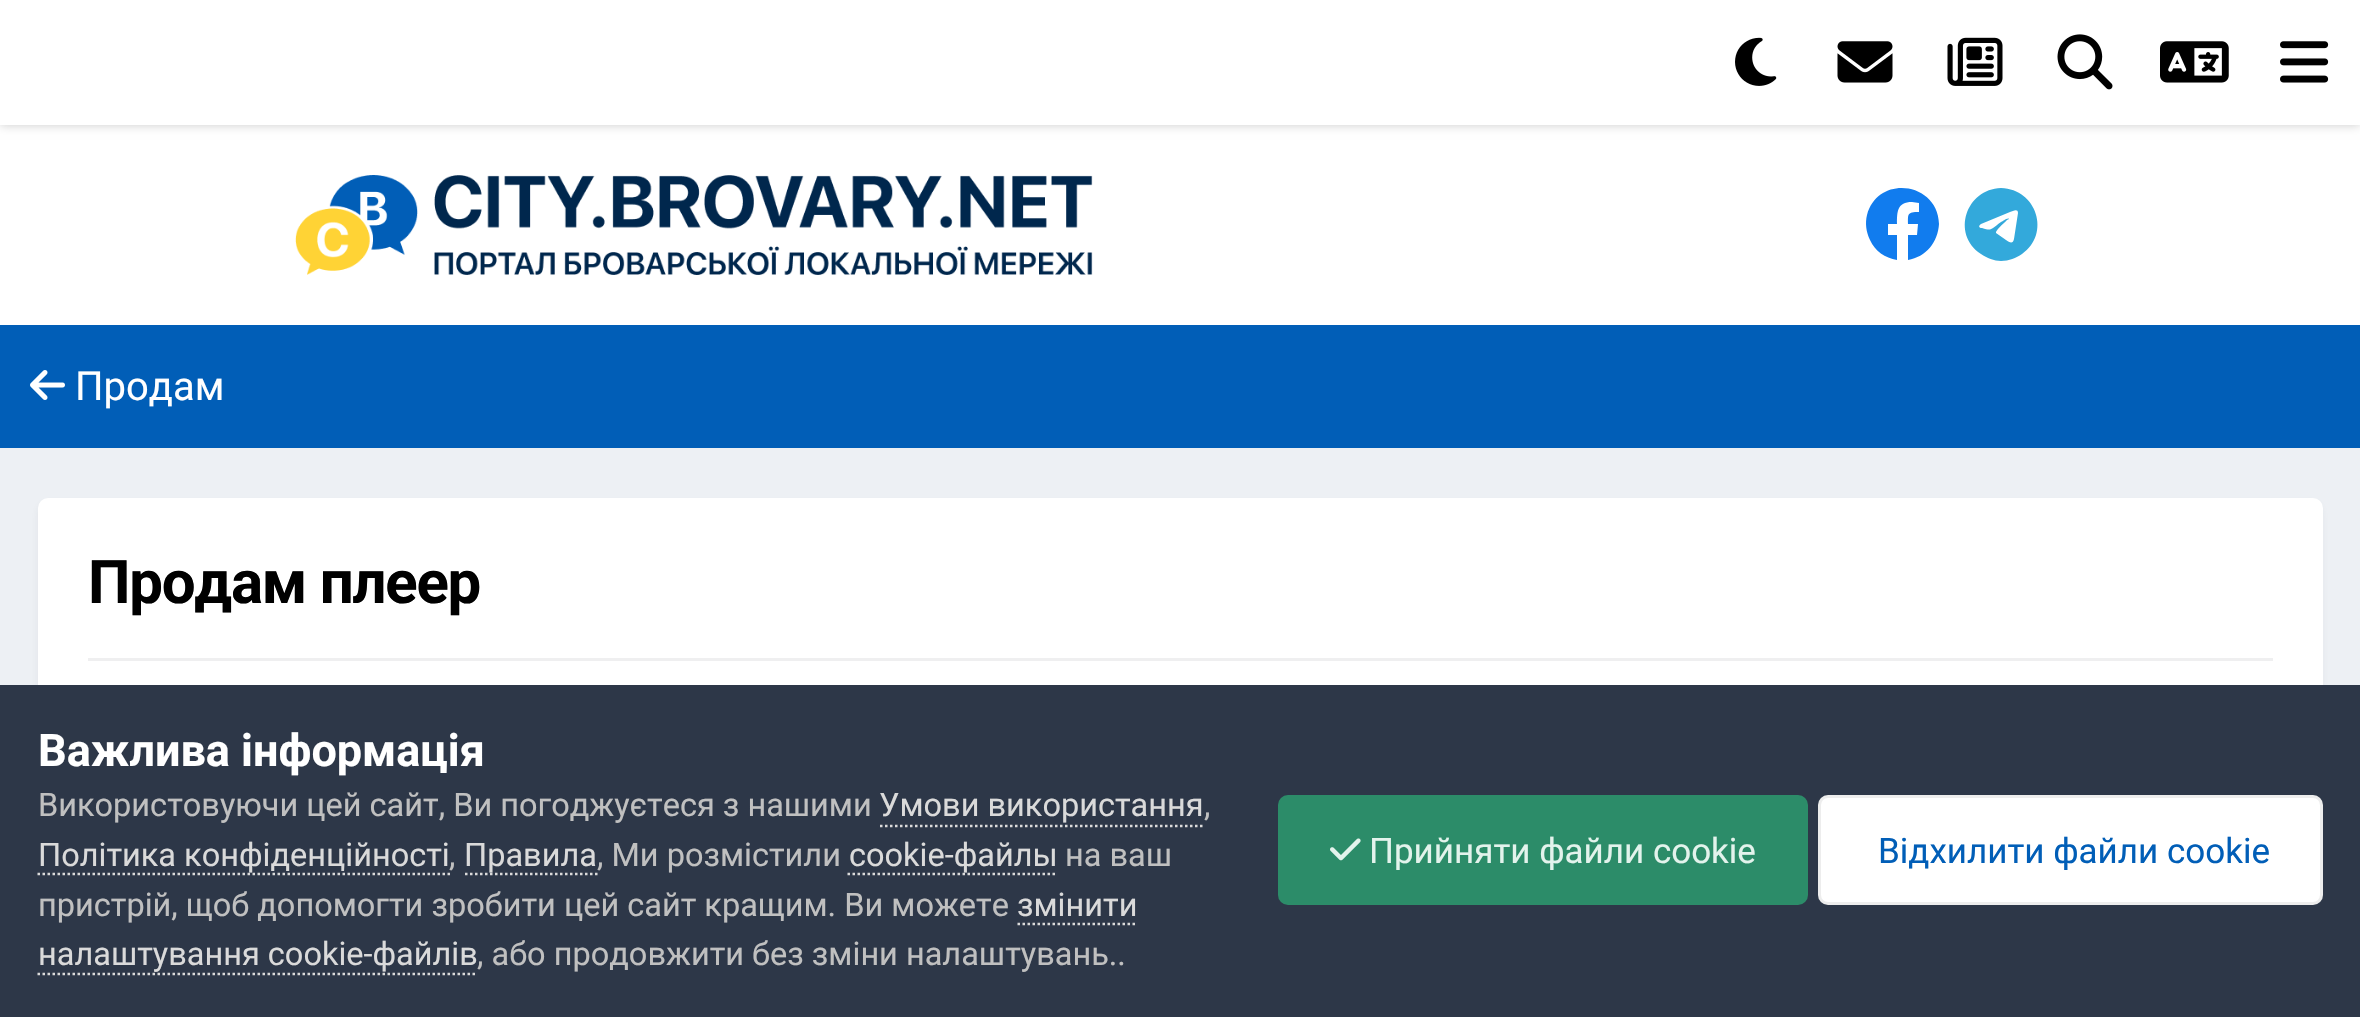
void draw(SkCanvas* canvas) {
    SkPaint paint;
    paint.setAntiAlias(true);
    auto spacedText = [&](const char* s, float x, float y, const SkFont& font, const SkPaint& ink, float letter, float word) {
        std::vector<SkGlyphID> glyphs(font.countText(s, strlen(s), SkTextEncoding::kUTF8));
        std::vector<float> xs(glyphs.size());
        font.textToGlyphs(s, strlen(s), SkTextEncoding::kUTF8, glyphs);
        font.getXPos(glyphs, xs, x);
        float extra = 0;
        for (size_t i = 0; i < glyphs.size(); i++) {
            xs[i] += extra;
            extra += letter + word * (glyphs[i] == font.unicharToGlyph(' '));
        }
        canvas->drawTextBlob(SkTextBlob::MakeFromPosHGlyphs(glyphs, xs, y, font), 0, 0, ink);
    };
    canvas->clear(0xFFEDF0F4);
    paint.setColor(0xFFFFFFFF);
    canvas->drawRect(SkRect::MakeXYWH(0, 125, 2360, 200), paint);
    paint.setColor(0x33000000);
    paint.setMaskFilter(SkMaskFilter::MakeBlur(kNormal_SkBlurStyle, 5));
    canvas->drawRect(SkRect::MakeXYWH(0, 0, 2360, 125), paint);
    paint.setMaskFilter(nullptr);
    paint.setColor(0xFFFFFFFF);
    canvas->drawRect(SkRect::MakeXYWH(0, 0, 2360, 125), paint);
    canvas->drawImageRect(SkImages::DeferredFromEncodedData(SkData::MakeFromFileName("img1.png")), SkRect::MakeXYWH(1735, 37, 42, 49), SkSamplingOptions());
    canvas->drawImageRect(SkImages::DeferredFromEncodedData(SkData::MakeFromFileName("img2.png")), SkRect::MakeXYWH(1837, 41, 56, 42), SkSamplingOptions());
    canvas->drawImageRect(SkImages::DeferredFromEncodedData(SkData::MakeFromFileName("img3.png")), SkRect::MakeXYWH(1947, 37, 56, 49), SkSamplingOptions());
    canvas->drawImageRect(SkImages::DeferredFromEncodedData(SkData::MakeFromFileName("img4.png")), SkRect::MakeXYWH(2057, 34, 56, 56), SkSamplingOptions());
    canvas->drawImageRect(SkImages::DeferredFromEncodedData(SkData::MakeFromFileName("img5.png")), SkRect::MakeXYWH(2160, 41, 69, 42), SkSamplingOptions());
    canvas->drawImageRect(SkImages::DeferredFromEncodedData(SkData::MakeFromFileName("img6.png")), SkRect::MakeXYWH(2280, 41, 49, 42), SkSamplingOptions());
    canvas->drawImageRect(SkImages::DeferredFromEncodedData(SkData::MakeFromFileName("img7.png")), SkRect::MakeXYWH(295, 175, 798, 100), SkSamplingOptions());
    paint.setColor(0xFF117CEE);
    canvas->drawPath(SkPathBuilder().moveTo(1939, 224).cubicTo(1938, 182, 1878, 174, 1867, 215).cubicTo(1865, 223, 1866, 232, 1870, 240).cubicTo(1875, 251, 1885, 258, 1897, 260).lineTo(1897, 235).lineTo(1888, 235).lineTo(1888, 224).lineTo(1897, 224).cubicTo(1897, 212, 1897, 202, 1912, 202).lineTo(1919, 203).lineTo(1919, 212).cubicTo(1907, 212, 1908, 214, 1908, 224).lineTo(1918, 224).lineTo(1917, 235).lineTo(1908, 235).lineTo(1908, 260).cubicTo(1926, 257, 1938, 242, 1939, 224).close().detach(), paint);
    paint.setColor(0xFF33A9DB);
    canvas->drawPath(SkPathBuilder().moveTo(2001, 188).cubicTo(1966, 189, 1951, 234, 1981, 254).cubicTo(1987, 258, 1994, 261, 2001, 261).cubicTo(2009, 261, 2016, 258, 2022, 254).cubicTo(2051, 234, 2037, 189, 2001, 188).close().moveTo(2018, 213).lineTo(2014, 239).cubicTo(2013, 244, 2010, 243, 2006, 240).lineTo(1996, 233).cubicTo(1995, 231, 2003, 224, 2007, 220).lineTo(2009, 219).cubicTo(2008, 217, 2002, 222, 2001, 222).cubicTo(1990, 230, 1992, 231, 1982, 228).cubicTo(1979, 228, 1978, 226, 1981, 224).lineTo(2010, 212).cubicTo(2013, 211, 2018, 208, 2018, 213).close().detach(), paint);
    paint.setColor(0xFF015EB7);
    canvas->drawRect(SkRect::MakeXYWH(0, 325, 2360, 123), paint);
    canvas->drawImageRect(SkImages::DeferredFromEncodedData(SkData::MakeFromFileName("img8.png")), SkRect::MakeXYWH(30, 370, 35, 30), SkSamplingOptions());
    SkFont font1(fontMgr->matchFamilyStyle("Roboto", SkFontStyle::Normal()), 40);
    font1.setSubpixel(true);
    paint.setColor(0xFFFFFFFF);
    canvas->drawString("Продам", 75, 400, font1, paint);
    paint.setColor(0x1A2D3748);
    paint.setMaskFilter(SkMaskFilter::MakeBlur(kNormal_SkBlurStyle, 5));
    canvas->drawRoundRect(SkRect::MakeXYWH(40, 505, 2280, 355), 8, 8, paint);
    paint.setMaskFilter(nullptr);
    paint.setColor(0xFFFFFFFF);
    canvas->drawRoundRect(SkRect::MakeXYWH(38, 498, 2285, 360), 10, 10, paint);
    SkFont font2(fontMgr->matchFamilyStyle("Roboto", SkFontStyle::Bold()), 60);
    font2.setSubpixel(true);
    paint.setColor(0xFF000000);
    spacedText("Продам плеер", 88, 603, font2, paint, -1.25f, 0);
    paint.setColor(0xFFEFEFF0);
    canvas->drawRect(SkRect::MakeXYWH(88, 658, 2185, 3), paint);
    paint.setColor(0xFF2D3748);
    canvas->drawRect(SkRect::MakeXYWH(0, 685, 2360, 332), paint);
    SkFont font3(fontMgr->matchFamilyStyle("Roboto", SkFontStyle::Bold()), 45);
    font3.setSubpixel(true);
    paint.setColor(0xFFFFFFFF);
    canvas->drawString("Важлива інформація", 38, 766, font3, paint);
    SkFont font4(fontMgr->matchFamilyStyle("Roboto", SkFontStyle::Normal()), 32.5f);
    font4.setSubpixel(true);
    paint.setColor(0xFFC0C0C0);
    canvas->drawString("Використовуючи цей сайт, Ви погоджуєтеся з нашими", 38, 816, font4, paint);
    paint.setColor(0xFFDADADA);
    canvas->drawString("Умови використання", 879, 816, font4, paint);
    paint.setStyle(SkPaint::kStroke_Style);
    paint.setStrokeWidth(2.5f);
    paint.setPathEffect(SkDashPathEffect::Make({{2.5f, 2.5f}}, 0));
    canvas->drawPath(SkPathBuilder().moveTo(880, 826).lineTo(1205, 826).detach(), paint);
    paint.setPathEffect(nullptr);
    paint.setStyle(SkPaint::kFill_Style);
    paint.setColor(0xFFC0C0C0);
    canvas->drawString(",", 1204, 816, font4, paint);
    paint.setStyle(SkPaint::kStroke_Style);
    paint.setColor(0xFFDADADA);
    paint.setPathEffect(SkDashPathEffect::Make({{2.5f, 2.5f}}, 0));
    canvas->drawPath(SkPathBuilder().moveTo(37.5f, 874).lineTo(450, 874).detach(), paint);
    paint.setPathEffect(nullptr);
    paint.setStyle(SkPaint::kFill_Style);
    canvas->drawString("Політика конфіденційності", 38, 866, font4, paint);
    paint.setColor(0xFFC0C0C0);
    canvas->drawString(",", 449, 866, font4, paint);
    paint.setStyle(SkPaint::kStroke_Style);
    paint.setColor(0xFFDADADA);
    paint.setPathEffect(SkDashPathEffect::Make({{2.5f, 2.5f}}, 0));
    canvas->drawPath(SkPathBuilder().moveTo(465, 874).lineTo(597.5f, 874).detach(), paint);
    paint.setPathEffect(nullptr);
    paint.setStyle(SkPaint::kFill_Style);
    canvas->drawString("Правила", 464, 866, font4, paint);
    paint.setColor(0xFFC0C0C0);
    canvas->drawString(", Ми розмістили", 597, 866, font4, paint);
    paint.setStyle(SkPaint::kStroke_Style);
    paint.setColor(0xFFDADADA);
    paint.setPathEffect(SkDashPathEffect::Make({{2.5f, 2.5f}}, 0));
    canvas->drawPath(SkPathBuilder().moveTo(847.5f, 874).lineTo(1057.5f, 874).detach(), paint);
    paint.setPathEffect(nullptr);
    paint.setStyle(SkPaint::kFill_Style);
    canvas->drawString("cookie-файлы", 849, 866, font4, paint);
    paint.setColor(0xFFC0C0C0);
    canvas->drawString("на ваш", 1065, 866, font4, paint);
    canvas->drawString("пристрій, щоб допомогти зробити цей сайт кращим. Ви можете", 38, 916, font4, paint);
    paint.setColor(0xFFDADADA);
    canvas->drawString("змінити", 1017, 916, font4, paint);
    paint.setStyle(SkPaint::kStroke_Style);
    paint.setPathEffect(SkDashPathEffect::Make({{2.5f, 2.5f}}, 0));
    canvas->drawPath(SkPathBuilder().moveTo(1017.5f, 924).lineTo(1137.5f, 924).detach(), paint);
    paint.setPathEffect(nullptr);
    paint.setStyle(SkPaint::kFill_Style);
    canvas->drawString("налаштування cookie-файлів", 38, 965, font4, paint);
    paint.setStyle(SkPaint::kStroke_Style);
    paint.setPathEffect(SkDashPathEffect::Make({{2.5f, 2.5f}}, 0));
    canvas->drawPath(SkPathBuilder().moveTo(37.5f, 974).lineTo(477.5f, 974).detach(), paint);
    paint.setPathEffect(nullptr);
    paint.setStyle(SkPaint::kFill_Style);
    paint.setColor(0xFFC0C0C0);
    canvas->drawString(", або продовжити без зміни налаштувань..", 477, 965, font4, paint);
    paint.setColor(0xFF2C8C69);
    canvas->drawRoundRect(SkRect::MakeXYWH(1278, 795, 530, 110), 10, 10, paint);
    canvas->drawImageRect(SkImages::DeferredFromEncodedData(SkData::MakeFromFileName("img9.png")), SkRect::MakeXYWH(1330, 838, 31, 23), SkSamplingOptions());
    SkFont font5(fontMgr->matchFamilyStyle("Roboto", SkFontStyle::Normal()), 35);
    font5.setSubpixel(true);
    paint.setColor(0xFFE3F3EC);
    canvas->drawString("Прийняти файли cookie", 1369, 863, font5, paint);
    paint.setColor(0xFFFFFFFF);
    canvas->drawRoundRect(SkRect::MakeXYWH(1818, 795, 505, 110), 10, 10, paint);
    paint.setStyle(SkPaint::kStroke_Style);
    paint.setStrokeWidth(3);
    paint.setColor(0x12000000);
    canvas->drawRoundRect(SkRect::MakeXYWH(1819.5f, 796.5f, 502, 107), 8.5f, 8.5f, paint);
    paint.setStyle(SkPaint::kFill_Style);
    paint.setColor(0xFF015EB7);
    canvas->drawString("Відхилити файли cookie", 1878, 863, font5, paint);
}
